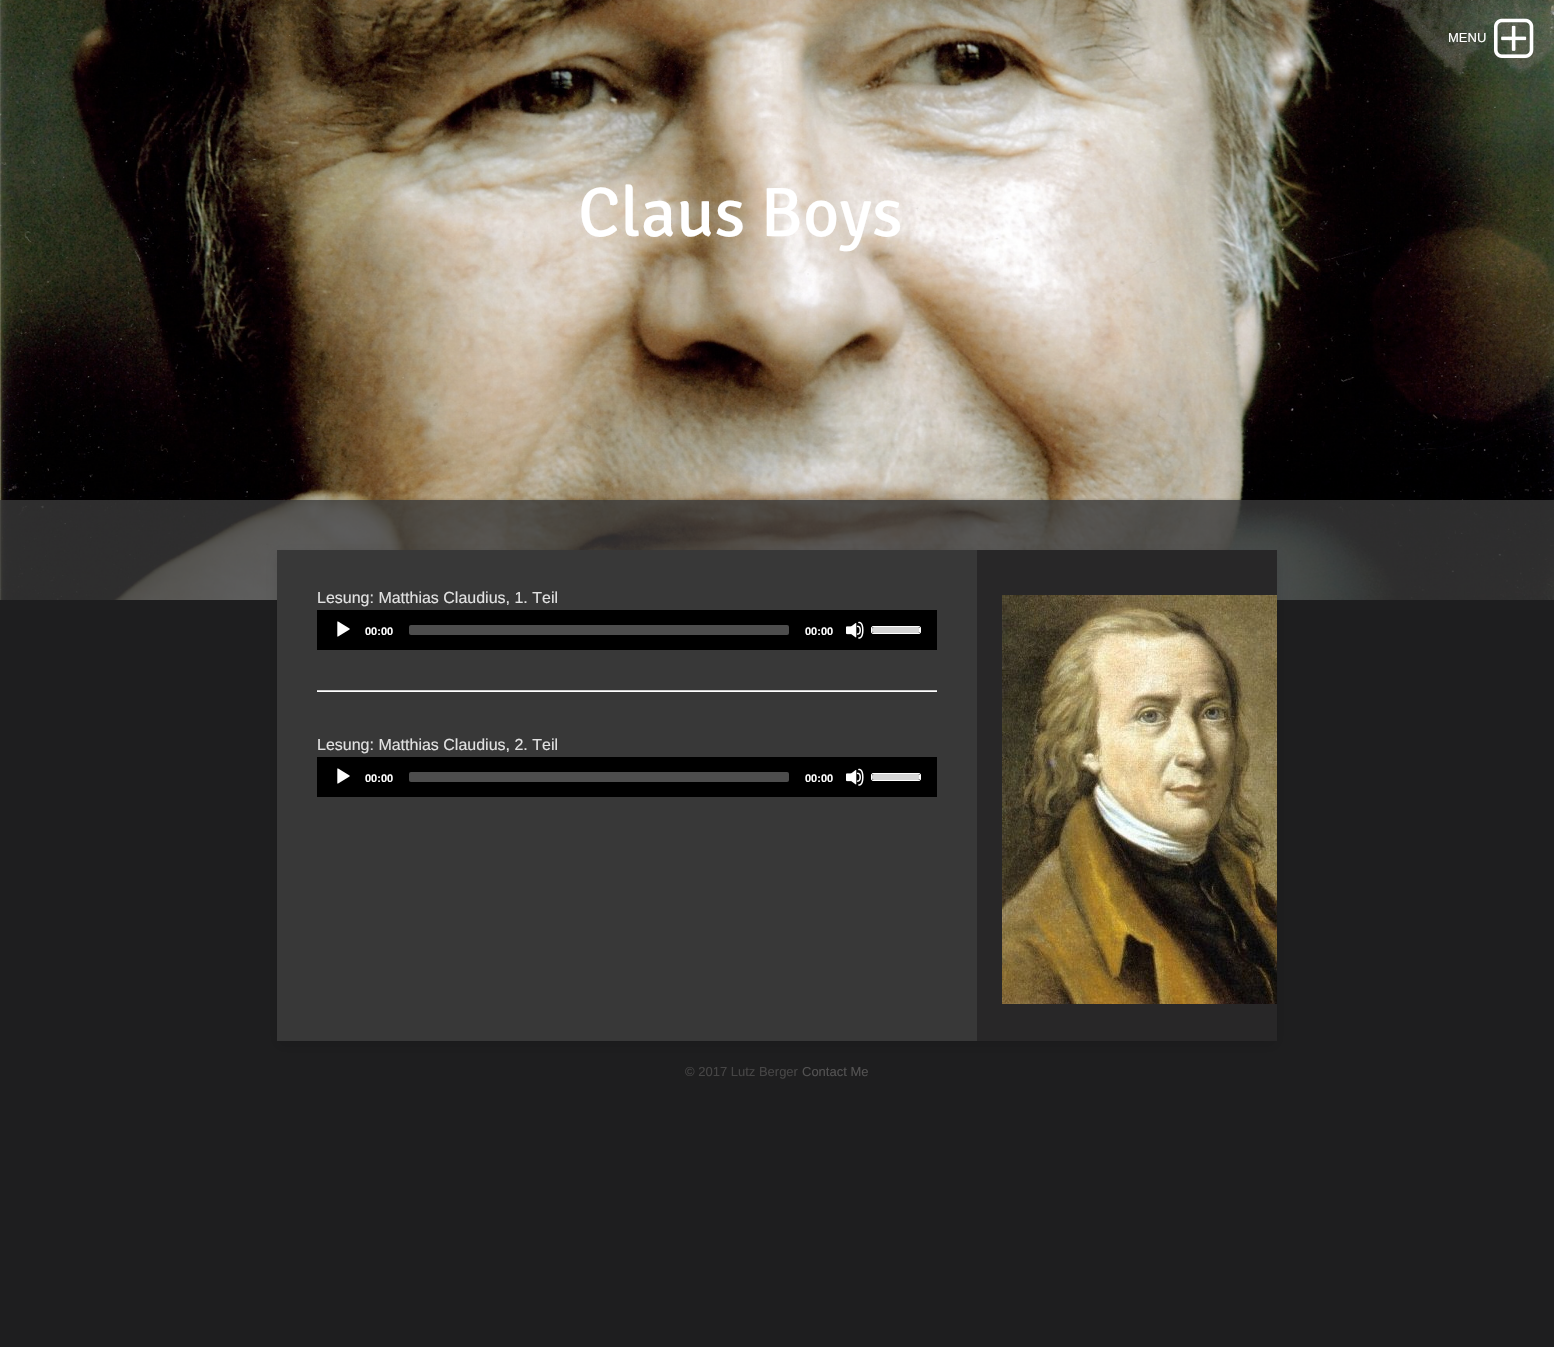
void draw(SkCanvas* canvas) {
    SkPaint paint;
    paint.setAntiAlias(true);
    canvas->clear(0xFF1E1E1F);
    canvas->drawImageRect(SkImages::DeferredFromEncodedData(SkData::MakeFromFileName("img2.png")), SkRect::MakeXYWH(0, 0, 1554, 600), SkSamplingOptions());
    SkFont font1(fontMgr->matchFamilyStyle("Liberation Sans", SkFontStyle::Normal()), 13);
    font1.setSubpixel(true);
    paint.setColor(0xFFFFFFFF);
    canvas->drawString("MENU", 1448, 42, font1, paint);
    canvas->drawImageRect(SkImages::DeferredFromEncodedData(SkData::MakeFromFileName("img1.png")), SkRect::MakeXYWH(1494, 18, 40, 40), SkSamplingOptions());
    SkFont font2(fontMgr->matchFamilyStyle("Signika", SkFontStyle(300, SkFontStyle::kNormal_Width, SkFontStyle::kUpright_Slant)), 70);
    font2.setSubpixel(true);
    canvas->drawString("Claus Boys", 578, 236, font2, paint);
    canvas->save();
    canvas->clipRect(SkRect::MakeXYWH(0, 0, 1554, 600));
    canvas->clipRect(SkRect::MakeXYWH(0, 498, 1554, 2));
    paint.setColor(0x4D000000);
    paint.setMaskFilter(SkMaskFilter::MakeBlur(kNormal_SkBlurStyle, 3));
    canvas->drawRect(SkRect::MakeXYWH(0, 502, 1554, 100), paint);
    paint.setMaskFilter(nullptr);
    canvas->restore();
    paint.setColor(0xCC383838);
    canvas->drawRect(SkRect::MakeXYWH(0, 500, 1554, 100), paint);
    paint.setColor(0x1C000000);
    paint.setMaskFilter(SkMaskFilter::MakeBlur(kNormal_SkBlurStyle, 6));
    canvas->drawRect(SkRect::MakeXYWH(277, 555, 1000, 491), paint);
    paint.setMaskFilter(nullptr);
    paint.setColor(0xFF383838);
    canvas->drawRect(SkRect::MakeXYWH(277, 550, 700, 491), paint);
    SkFont font3(fontMgr->matchFamilyStyle("Liberation Sans", SkFontStyle::Normal()), 16);
    font3.setSubpixel(true);
    paint.setColor(0xFFE2E2E2);
    canvas->drawString("Lesung: Matthias Claudius, 1. Teil", 317, 603, font3, paint);
    paint.setColor(0xFF000000);
    canvas->drawRect(SkRect::MakeXYWH(317, 610, 620, 40), paint);
    canvas->drawImageRect(SkImages::DeferredFromEncodedData(SkData::MakeFromFileName("img3.png")), SkRect::MakeXYWH(337, 621, 13, 16), SkSamplingOptions());
    SkFont font4(fontMgr->matchFamilyStyle("Liberation Sans", SkFontStyle::Bold()), 11);
    font4.setSubpixel(true);
    paint.setColor(0xFFFFFFFF);
    canvas->drawString("00:00", 365, 635, font4, paint);
    paint.setColor(0xFF4D4D4D);
    canvas->drawRoundRect(SkRect::MakeXYWH(409, 625, 380, 10), 2, 2, paint);
    paint.setColor(0xFFFFFFFF);
    canvas->drawString("00:00", 805, 635, font4, paint);
    canvas->drawImageRect(SkImages::DeferredFromEncodedData(SkData::MakeFromFileName("img4.png")), SkRect::MakeXYWH(846, 621, 18, 18), SkSamplingOptions());
    paint.setColor(0xFF282828);
    canvas->drawRoundRect(SkRect::MakeXYWH(871.5f, 626.5f, 49, 7), 1.5f, 1.5f, paint);
    paint.setStyle(SkPaint::kStroke_Style);
    paint.setStrokeWidth(1);
    paint.setColor(0xFFFFFFFF);
    canvas->drawRoundRect(SkRect::MakeXYWH(871.5f, 626.5f, 49, 7), 1.5f, 1.5f, paint);
    paint.setStyle(SkPaint::kFill_Style);
    paint.setColor(0xFFD4D4D4);
    canvas->drawRoundRect(SkRect::MakeXYWH(872, 627, 48, 6), 2, 2, paint);
    paint.setColor(0xFFFFFFFF);
    canvas->drawRect(SkRect::MakeXYWH(919, 628, 1, 4), paint);
    paint.setColor(0xFFCCCCCC);
    canvas->drawRect(SkRect::MakeXYWH(317, 690, 620, 1), paint);
    paint.setColor(0xFFFFFFFF);
    canvas->drawRect(SkRect::MakeXYWH(317, 691, 620, 1), paint);
    paint.setColor(0xFFE2E2E2);
    canvas->drawString("Lesung: Matthias Claudius, 2. Teil", 317, 750, font3, paint);
    paint.setColor(0xFF000000);
    canvas->drawRect(SkRect::MakeXYWH(317, 757, 620, 40), paint);
    canvas->drawImageRect(SkImages::DeferredFromEncodedData(SkData::MakeFromFileName("img3.png")), SkRect::MakeXYWH(337, 768, 13, 16), SkSamplingOptions());
    paint.setColor(0xFFFFFFFF);
    canvas->drawString("00:00", 365, 782, font4, paint);
    paint.setColor(0xFF4D4D4D);
    canvas->drawRoundRect(SkRect::MakeXYWH(409, 772, 380, 10), 2, 2, paint);
    paint.setColor(0xFFFFFFFF);
    canvas->drawString("00:00", 805, 782, font4, paint);
    canvas->drawImageRect(SkImages::DeferredFromEncodedData(SkData::MakeFromFileName("img4.png")), SkRect::MakeXYWH(846, 768, 18, 18), SkSamplingOptions());
    paint.setColor(0xFF282828);
    canvas->drawRoundRect(SkRect::MakeXYWH(871.5f, 773.5f, 49, 7), 1.5f, 1.5f, paint);
    paint.setStyle(SkPaint::kStroke_Style);
    paint.setColor(0xFFFFFFFF);
    canvas->drawRoundRect(SkRect::MakeXYWH(871.5f, 773.5f, 49, 7), 1.5f, 1.5f, paint);
    paint.setStyle(SkPaint::kFill_Style);
    paint.setColor(0xFFD4D4D4);
    canvas->drawRoundRect(SkRect::MakeXYWH(872, 774, 48, 6), 2, 2, paint);
    paint.setColor(0xFFFFFFFF);
    canvas->drawRect(SkRect::MakeXYWH(919, 775, 1, 4), paint);
    paint.setColor(0xFF282728);
    canvas->drawRect(SkRect::MakeXYWH(977, 550, 300, 491), paint);
    canvas->drawImageRect(SkImages::DeferredFromEncodedData(SkData::MakeFromFileName("img5.png")), SkRect::MakeXYWH(1002, 595, 275, 409), SkSamplingOptions());
    paint.setColor(0xFF464545);
    canvas->drawString("© 2017 Lutz Berger", 685, 1076, font1, paint);
    paint.setColor(0xFF535252);
    canvas->drawString("Contact Me", 802, 1076, font1, paint);
}
